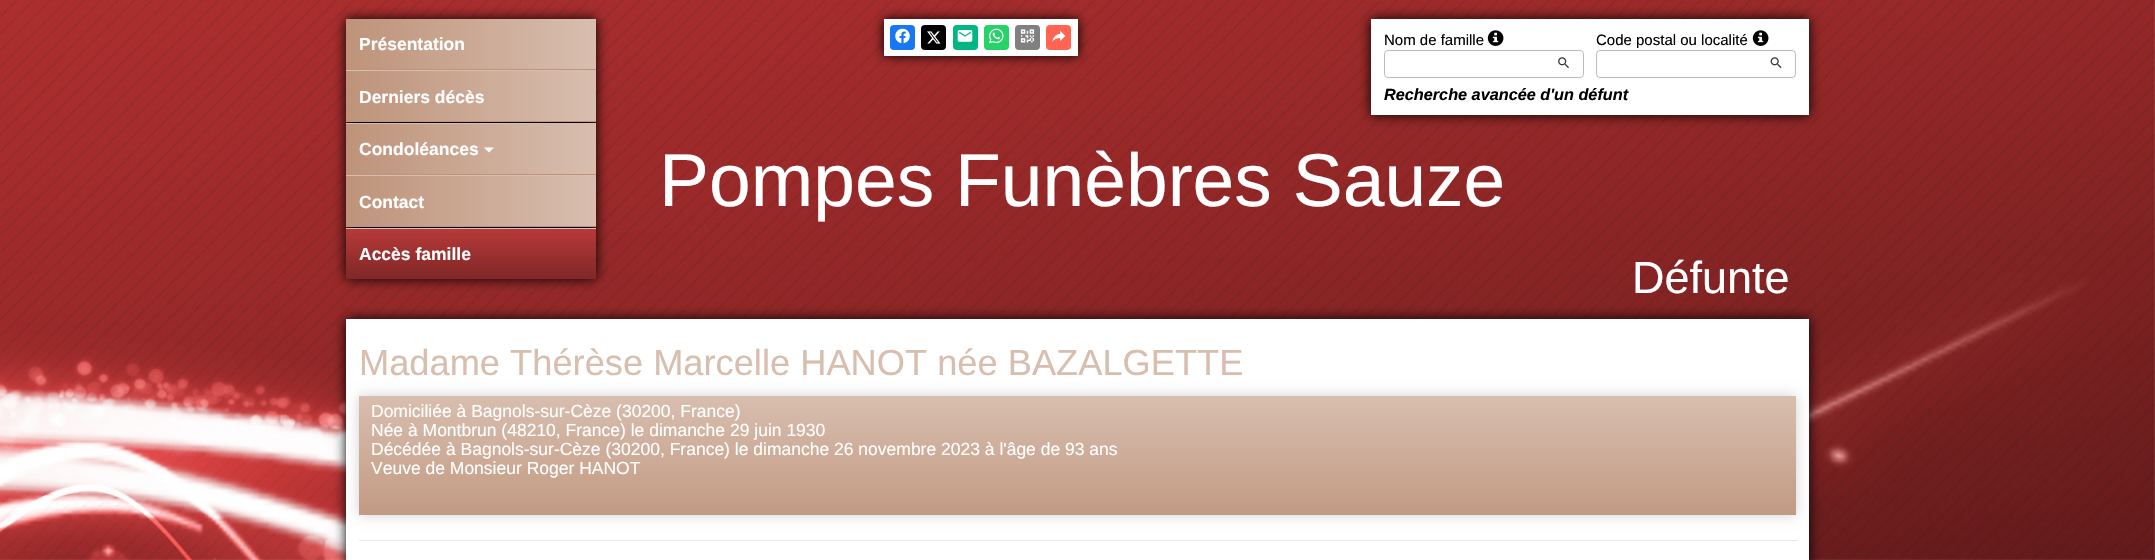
void draw(SkCanvas* canvas) {
    SkPaint paint;
    paint.setAntiAlias(true);
    canvas->clear(0xFFFFFFFF);
    canvas->drawImageRect(SkImages::DeferredFromEncodedData(SkData::MakeFromFileName("img1.png")), SkRect::MakeXYWH(0, 0, 2155, 560), SkSamplingOptions());
    paint.setColor(0xFF000000);
    paint.setMaskFilter(SkMaskFilter::MakeBlur(kNormal_SkBlurStyle, 6));
    canvas->drawRect(SkRect::MakeXYWH(346, 19, 250, 260), paint);
    paint.setMaskFilter(nullptr);
    paint.setColor(0xFFBE937A);
    canvas->drawRect(SkRect::MakeXYWH(346, 69, 250, 1), paint);
    {
        const SkColor colors[] = {0xFFBE937A, 0xFFD8BEAF};
        const float stops[] = {0, 1};
        const SkPoint ends[] = {{346, 44}, {596, 44}};
        paint.setShader(SkGradientShader::MakeLinear(ends, colors, stops, 2, SkTileMode::kClamp));
        paint.setAlpha(255);
    }
    canvas->drawRect(SkRect::MakeXYWH(346, 19, 250, 50), paint);
    SkFont font1(fontMgr->matchFamilyStyle("Liberation Sans", SkFontStyle::Bold()), 17.5f);
    font1.setSubpixel(true);
    paint.setShader(nullptr);
    paint.setColor(0xFFFFFFFF);
    canvas->drawString("Présentation", 359, 50, font1, paint);
    paint.setColor(0xFFD8BEAF);
    canvas->drawRect(SkRect::MakeXYWH(346, 70, 250, 1), paint);
    paint.setColor(0xFFBE937A);
    canvas->drawRect(SkRect::MakeXYWH(346, 121, 250, 1), paint);
    {
        const SkColor colors[] = {0xFFBE937A, 0xFFD8BEAF};
        const float stops[] = {0, 1};
        const SkPoint ends[] = {{346, 96}, {596, 96}};
        paint.setShader(SkGradientShader::MakeLinear(ends, colors, stops, 2, SkTileMode::kClamp));
        paint.setAlpha(255);
    }
    canvas->drawRect(SkRect::MakeXYWH(346, 71, 250, 50), paint);
    paint.setShader(nullptr);
    paint.setColor(0xFFFFFFFF);
    canvas->drawString("Derniers décès", 359, 103, font1, paint);
    paint.setColor(0xFFD8BEAF);
    canvas->drawRect(SkRect::MakeXYWH(346, 123, 250, 1), paint);
    paint.setColor(0xFFBE937A);
    canvas->drawRect(SkRect::MakeXYWH(346, 174, 250, 1), paint);
    {
        const SkColor colors[] = {0xFFBE937A, 0xFFD8BEAF};
        const float stops[] = {0, 1};
        const SkPoint ends[] = {{346, 149}, {596, 149}};
        paint.setShader(SkGradientShader::MakeLinear(ends, colors, stops, 2, SkTileMode::kClamp));
        paint.setAlpha(255);
    }
    canvas->drawRect(SkRect::MakeXYWH(346, 124, 250, 50), paint);
    paint.setShader(nullptr);
    paint.setColor(0xFFFFFFFF);
    canvas->drawString("Condoléances", 359, 155, font1, paint);
    canvas->drawPath(SkPathBuilder().moveTo(484, 147.5f).lineTo(494, 147.5f).lineTo(489, 152.5f).close().detach(), paint);
    paint.setColor(0xFFD8BEAF);
    canvas->drawRect(SkRect::MakeXYWH(346, 175, 250, 1), paint);
    paint.setColor(0xFFBE937A);
    canvas->drawRect(SkRect::MakeXYWH(346, 226, 250, 1), paint);
    {
        const SkColor colors[] = {0xFFBE937A, 0xFFD8BEAF};
        const float stops[] = {0, 1};
        const SkPoint ends[] = {{346, 201}, {596, 201}};
        paint.setShader(SkGradientShader::MakeLinear(ends, colors, stops, 2, SkTileMode::kClamp));
        paint.setAlpha(255);
    }
    canvas->drawRect(SkRect::MakeXYWH(346, 176, 250, 50), paint);
    paint.setShader(nullptr);
    paint.setColor(0xFFFFFFFF);
    canvas->drawString("Contact", 359, 208, font1, paint);
    paint.setColor(0xFFD8BEAF);
    canvas->drawRect(SkRect::MakeXYWH(346, 228, 250, 1), paint);
    {
        const SkColor colors[] = {0xFFB73939, 0xFF802727};
        const float stops[] = {0, 1};
        const SkPoint ends[] = {{471, 229}, {471, 279}};
        paint.setShader(SkGradientShader::MakeLinear(ends, colors, stops, 2, SkTileMode::kClamp));
        paint.setAlpha(255);
    }
    canvas->drawRect(SkRect::MakeXYWH(346, 229, 250, 50), paint);
    paint.setShader(nullptr);
    paint.setColor(0xFFFFFFFF);
    canvas->drawString("Accès famille", 359, 260, font1, paint);
    paint.setColor(0xFF000000);
    paint.setMaskFilter(SkMaskFilter::MakeBlur(kNormal_SkBlurStyle, 6));
    canvas->drawRect(SkRect::MakeXYWH(884, 19, 194, 37), paint);
    paint.setMaskFilter(nullptr);
    paint.setColor(0xFFFFFFFF);
    canvas->drawRect(SkRect::MakeXYWH(884, 19, 194, 37), paint);
    paint.setColor(0xFF1877F2);
    canvas->drawRoundRect(SkRect::MakeXYWH(890, 25, 25, 25), 4, 4, paint);
    canvas->drawImageRect(SkImages::DeferredFromEncodedData(SkData::MakeFromFileName("img2.png")), SkRect::MakeXYWH(895, 28, 15, 16), SkSamplingOptions());
    paint.setColor(0xFF000000);
    canvas->drawRoundRect(SkRect::MakeXYWH(921, 25, 25, 25), 4, 4, paint);
    canvas->drawImageRect(SkImages::DeferredFromEncodedData(SkData::MakeFromFileName("img3.png")), SkRect::MakeXYWH(927, 31, 14, 13), SkSamplingOptions());
    paint.setColor(0xFF00B685);
    canvas->drawRoundRect(SkRect::MakeXYWH(953, 25, 25, 25), 4, 4, paint);
    canvas->drawImageRect(SkImages::DeferredFromEncodedData(SkData::MakeFromFileName("img4.png")), SkRect::MakeXYWH(957, 30, 16, 12), SkSamplingOptions());
    paint.setColor(0xFF25D366);
    canvas->drawRoundRect(SkRect::MakeXYWH(984, 25, 25, 25), 4, 4, paint);
    canvas->drawImageRect(SkImages::DeferredFromEncodedData(SkData::MakeFromFileName("img5.png")), SkRect::MakeXYWH(989, 28, 15, 16), SkSamplingOptions());
    paint.setColor(0xFF808080);
    canvas->drawRoundRect(SkRect::MakeXYWH(1015, 25, 25, 25), 4, 4, paint);
    canvas->drawImageRect(SkImages::DeferredFromEncodedData(SkData::MakeFromFileName("img6.png")), SkRect::MakeXYWH(1020, 29, 15, 14), SkSamplingOptions());
    paint.setColor(0xFFFF6550);
    canvas->drawRoundRect(SkRect::MakeXYWH(1046, 25, 25, 25), 4, 4, paint);
    canvas->drawImageRect(SkImages::DeferredFromEncodedData(SkData::MakeFromFileName("img7.png")), SkRect::MakeXYWH(1052, 31, 14, 11), SkSamplingOptions());
    paint.setColor(0xFF000000);
    paint.setMaskFilter(SkMaskFilter::MakeBlur(kNormal_SkBlurStyle, 6));
    canvas->drawRect(SkRect::MakeXYWH(1371, 19, 438, 96), paint);
    paint.setMaskFilter(nullptr);
    paint.setColor(0xFFFFFFFF);
    canvas->drawRect(SkRect::MakeXYWH(1371, 19, 438, 96), paint);
    SkFont font2(fontMgr->matchFamilyStyle("Liberation Sans", SkFontStyle::Normal()), 15);
    font2.setSubpixel(true);
    paint.setColor(0xFF000000);
    canvas->drawString("Nom de famille", 1384, 45, font2, paint);
    canvas->drawImageRect(SkImages::DeferredFromEncodedData(SkData::MakeFromFileName("img8.png")), SkRect::MakeXYWH(1487, 30, 17, 16), SkSamplingOptions());
    paint.setStyle(SkPaint::kStroke_Style);
    paint.setStrokeWidth(1);
    paint.setColor(0xFFBBBBBB);
    canvas->drawRoundRect(SkRect::MakeXYWH(1384.5f, 50.5f, 199, 27), 3.5f, 3.5f, paint);
    canvas->drawImageRect(SkImages::DeferredFromEncodedData(SkData::MakeFromFileName("img9.png")), SkRect::MakeXYWH(1558, 57, 11, 12), SkSamplingOptions());
    paint.setStyle(SkPaint::kFill_Style);
    paint.setColor(0xFF000000);
    canvas->drawString("Code postal ou localité", 1596, 45, font2, paint);
    canvas->drawImageRect(SkImages::DeferredFromEncodedData(SkData::MakeFromFileName("img8.png")), SkRect::MakeXYWH(1752, 30, 17, 16), SkSamplingOptions());
    paint.setStyle(SkPaint::kStroke_Style);
    paint.setColor(0xFFBBBBBB);
    canvas->drawRoundRect(SkRect::MakeXYWH(1596.5f, 50.5f, 199, 27), 3.5f, 3.5f, paint);
    canvas->drawImageRect(SkImages::DeferredFromEncodedData(SkData::MakeFromFileName("img10.png")), SkRect::MakeXYWH(1770, 57, 12, 12), SkSamplingOptions());
    SkFont font3(fontMgr->matchFamilyStyle("Liberation Sans", SkFontStyle::BoldItalic()), 16.25f);
    font3.setSubpixel(true);
    paint.setStyle(SkPaint::kFill_Style);
    paint.setColor(0xFF000000);
    canvas->drawString("Recherche avancée d'un défunt", 1384, 100, font3, paint);
    SkFont font4(fontMgr->matchFamilyStyle("Liberation Sans", SkFontStyle::Normal()), 75);
    font4.setSubpixel(true);
    paint.setColor(0xFFFFFFFF);
    canvas->drawString("Pompes Funèbres Sauze", 659, 206, font4, paint);
    SkFont font5(fontMgr->matchFamilyStyle("Liberation Sans", SkFontStyle::Normal()), 45);
    font5.setSubpixel(true);
    canvas->drawString("Défunte", 1632, 293, font5, paint);
    paint.setColor(0xFF000000);
    paint.setMaskFilter(SkMaskFilter::MakeBlur(kNormal_SkBlurStyle, 6));
    canvas->drawRect(SkRect::MakeXYWH(346, 319, 1463, 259), paint);
    paint.setMaskFilter(nullptr);
    paint.setColor(0xFFFFFFFF);
    canvas->drawRect(SkRect::MakeXYWH(346, 319, 1463, 241), paint);
    SkFont font6(fontMgr->matchFamilyStyle("Liberation Sans", SkFontStyle::Normal()), 36.25f);
    font6.setSubpixel(true);
    paint.setColor(0xFFD8BEAF);
    canvas->drawString("Madame Thérèse Marcelle HANOT née BAZALGETTE", 359, 375, font6, paint);
    paint.setColor(0xFFD1D1D1);
    paint.setMaskFilter(SkMaskFilter::MakeBlur(kNormal_SkBlurStyle, 6));
    canvas->drawRect(SkRect::MakeXYWH(359, 396, 1437, 119), paint);
    paint.setMaskFilter(nullptr);
    {
        const SkColor colors[] = {0xFFD8BEAF, 0xFFC29A83};
        const float stops[] = {0, 1};
        const SkPoint ends[] = {{1078, 396}, {1078, 515}};
        paint.setShader(SkGradientShader::MakeLinear(ends, colors, stops, 2, SkTileMode::kClamp));
        paint.setAlpha(255);
    }
    canvas->drawRect(SkRect::MakeXYWH(359, 396, 1437, 119), paint);
    SkFont font7(fontMgr->matchFamilyStyle("Liberation Sans", SkFontStyle::Normal()), 17.5f);
    font7.setSubpixel(true);
    paint.setShader(nullptr);
    paint.setColor(0xFFFFFFFF);
    canvas->drawString("Domiciliée à Bagnols-sur-Cèze (30200, France)", 371, 417, font7, paint);
    canvas->drawString("Née à Montbrun (48210, France) le dimanche 29 juin 1930", 371, 436, font7, paint);
    canvas->drawString("Décédée à Bagnols-sur-Cèze (30200, France) le dimanche 26 novembre 2023 à l'âge de 93 ans", 371, 455, font7, paint);
    canvas->drawString("Veuve de Monsieur Roger HANOT", 371, 474, font7, paint);
    paint.setColor(0xFFE8E8E8);
    canvas->drawRect(SkRect::MakeXYWH(359, 540, 1439, 1), paint);
}
